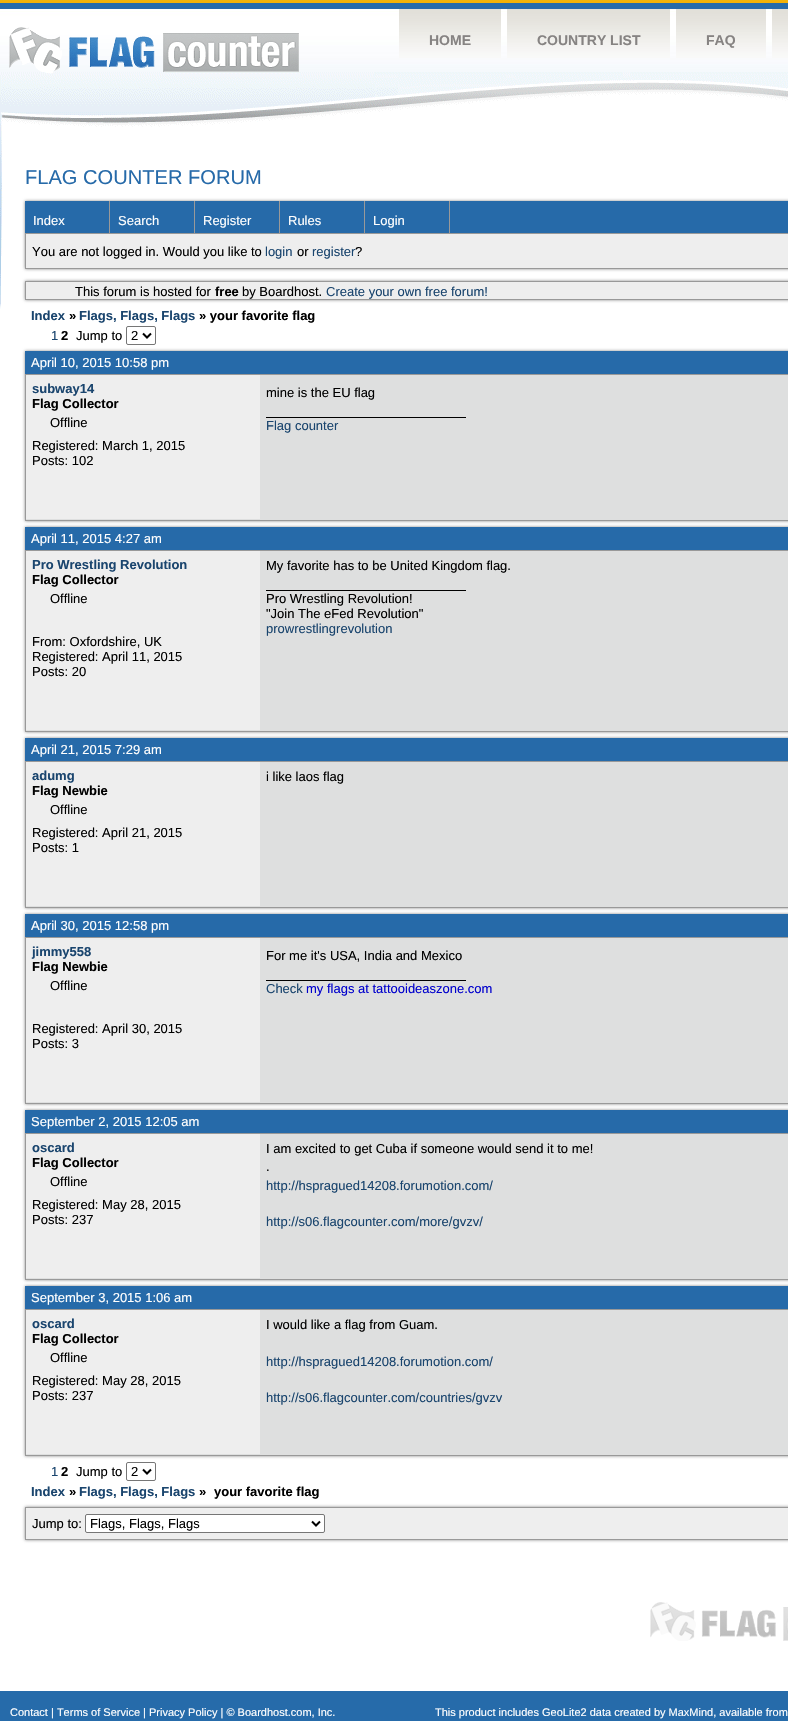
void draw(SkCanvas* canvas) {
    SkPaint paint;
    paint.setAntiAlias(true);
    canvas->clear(0xFFFFFFFF);
    canvas->drawImageRect(SkImages::DeferredFromEncodedData(SkData::MakeFromFileName("img1.png")), SkRect::MakeXYWH(0, 0, 788, 72), SkSamplingOptions());
    canvas->drawImageRect(SkImages::DeferredFromEncodedData(SkData::MakeFromFileName("img2.png")), SkRect::MakeXYWH(9, 27, 290, 45), SkSamplingOptions());
    canvas->drawImageRect(SkImages::DeferredFromEncodedData(SkData::MakeFromFileName("img3.png")), SkRect::MakeXYWH(399, 9, 102, 49), SkSamplingOptions());
    SkFont font1(fontMgr->matchFamilyStyle("Liberation Sans", SkFontStyle::Bold()), 14);
    font1.setSubpixel(true);
    paint.setColor(0xFF868382);
    canvas->drawString("HOME", 429, 45, font1, paint);
    canvas->drawImageRect(SkImages::DeferredFromEncodedData(SkData::MakeFromFileName("img4.png")), SkRect::MakeXYWH(507, 9, 163, 49), SkSamplingOptions());
    canvas->drawString("COUNTRY LIST", 537, 45, font1, paint);
    canvas->drawImageRect(SkImages::DeferredFromEncodedData(SkData::MakeFromFileName("img5.png")), SkRect::MakeXYWH(676, 9, 90, 49), SkSamplingOptions());
    canvas->drawString("FAQ", 706, 45, font1, paint);
    canvas->drawImageRect(SkImages::DeferredFromEncodedData(SkData::MakeFromFileName("img6.png")), SkRect::MakeXYWH(772, 9, 16, 49), SkSamplingOptions());
    canvas->drawImageRect(SkImages::DeferredFromEncodedData(SkData::MakeFromFileName("img7.png")), SkRect::MakeXYWH(0, 72, 788, 237), SkSamplingOptions());
    SkFont font2(fontMgr->matchFamilyStyle("Liberation Sans", SkFontStyle::Normal()), 20.1f);
    font2.setSubpixel(true);
    paint.setColor(0xFF266AA9);
    canvas->drawString("FLAG COUNTER FORUM", 25, 184, font2, paint);
    paint.setColor(0xFF888888);
    paint.setMaskFilter(SkMaskFilter::MakeBlur(kNormal_SkBlurStyle, 1.5f));
    canvas->drawRect(SkRect::MakeXYWH(25, 201, 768, 68), paint);
    paint.setMaskFilter(nullptr);
    paint.setColor(0xFFEEEEEE);
    canvas->drawRect(SkRect::MakeXYWH(26, 234, 762, 34), paint);
    paint.setStyle(SkPaint::kStroke_Style);
    paint.setStrokeWidth(1);
    paint.setColor(0xFF999999);
    canvas->drawRect(SkRect::MakeXYWH(25.5f, 201.5f, 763, 67), paint);
    paint.setStyle(SkPaint::kFill_Style);
    paint.setColor(0xFF266AA9);
    canvas->drawRect(SkRect::MakeXYWH(25, 201, 763, 32), paint);
    paint.setColor(0xFF999999);
    canvas->drawRect(SkRect::MakeXYWH(25, 233, 763, 1), paint);
    canvas->drawRect(SkRect::MakeXYWH(109, 201, 1, 32), paint);
    SkFont font3(fontMgr->matchFamilyStyle("Liberation Sans", SkFontStyle::Normal()), 13);
    font3.setSubpixel(true);
    paint.setColor(0xFFFFFFFF);
    canvas->drawString("Index", 33, 225, font3, paint);
    paint.setColor(0xFF999999);
    canvas->drawRect(SkRect::MakeXYWH(194, 201, 1, 32), paint);
    paint.setColor(0xFFFFFFFF);
    canvas->drawString("Search", 118, 225, font3, paint);
    paint.setColor(0xFF999999);
    canvas->drawRect(SkRect::MakeXYWH(279, 201, 1, 32), paint);
    paint.setColor(0xFFFFFFFF);
    canvas->drawString("Register", 203, 225, font3, paint);
    paint.setColor(0xFF999999);
    canvas->drawRect(SkRect::MakeXYWH(364, 201, 1, 32), paint);
    paint.setColor(0xFFFFFFFF);
    canvas->drawString("Rules", 288, 225, font3, paint);
    paint.setColor(0xFF999999);
    canvas->drawRect(SkRect::MakeXYWH(449, 201, 1, 32), paint);
    paint.setColor(0xFFFFFFFF);
    canvas->drawString("Login", 373, 225, font3, paint);
    paint.setColor(0xFF000000);
    canvas->drawString("You are not logged in. Would you like to", 32, 256, font3, paint);
    paint.setColor(0xFF1A456E);
    canvas->drawString("login", 265, 256, font3, paint);
    paint.setColor(0xFF000000);
    canvas->drawString("or", 297, 256, font3, paint);
    paint.setColor(0xFF1A456E);
    canvas->drawString("register", 312, 256, font3, paint);
    paint.setColor(0xFF000000);
    canvas->drawString("?", 355, 256, font3, paint);
    paint.setColor(0xFF888888);
    paint.setMaskFilter(SkMaskFilter::MakeBlur(kNormal_SkBlurStyle, 1.5f));
    canvas->drawRect(SkRect::MakeXYWH(25, 281, 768, 19), paint);
    paint.setMaskFilter(nullptr);
    paint.setColor(0xFFEEEEEE);
    canvas->drawRect(SkRect::MakeXYWH(25.5f, 281.5f, 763, 18), paint);
    paint.setStyle(SkPaint::kStroke_Style);
    paint.setColor(0xFF999999);
    canvas->drawRect(SkRect::MakeXYWH(25.5f, 281.5f, 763, 18), paint);
    paint.setStyle(SkPaint::kFill_Style);
    paint.setColor(0xFF000000);
    canvas->drawString("This forum is hosted for", 75, 296, font3, paint);
    SkFont font4(fontMgr->matchFamilyStyle("Liberation Sans", SkFontStyle::Bold()), 13);
    font4.setSubpixel(true);
    canvas->drawString("free", 215, 296, font4, paint);
    canvas->drawString("by Boardhost.", 242, 296, font3, paint);
    paint.setColor(0xFF1A456E);
    canvas->drawString("Create your own free forum!", 326, 296, font3, paint);
    canvas->drawString("Index", 31, 320, font4, paint);
    paint.setColor(0xFF000000);
    canvas->drawString("»", 69, 320, font4, paint);
    paint.setColor(0xFF1A456E);
    canvas->drawString("Flags, Flags, Flags", 79, 320, font4, paint);
    paint.setColor(0xFF000000);
    canvas->drawString("» your favorite flag", 199, 320, font4, paint);
    paint.setColor(0xFF1A456E);
    canvas->drawString("1", 51, 340, font3, paint);
    paint.setColor(0xFF000000);
    canvas->drawString("2", 61, 340, font4, paint);
    canvas->drawString("Jump to", 76, 340, font3, paint);
    paint.setStyle(SkPaint::kStroke_Style);
    paint.setColor(0xFF767676);
    canvas->drawRoundRect(SkRect::MakeXYWH(126.5f, 326.5f, 29, 18), 1.5f, 1.5f, paint);
    paint.setStrokeWidth(2);
    paint.setColor(0xFF000000);
    canvas->drawPath(SkPathBuilder().moveTo(143, 333.5f).lineTo(147, 337.5f).lineTo(151, 333.5f).detach(), paint);
    paint.setStyle(SkPaint::kFill_Style);
    canvas->drawString("2", 131, 340, font3, paint);
    paint.setColor(0xFF888888);
    paint.setMaskFilter(SkMaskFilter::MakeBlur(kNormal_SkBlurStyle, 1.5f));
    canvas->drawRect(SkRect::MakeXYWH(25, 351, 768, 170), paint);
    paint.setMaskFilter(nullptr);
    paint.setColor(0xFF266AA9);
    canvas->drawRect(SkRect::MakeXYWH(25, 351, 763, 23), paint);
    paint.setColor(0xFFFFFFFF);
    canvas->drawString("April 10, 2015 10:58 pm", 31, 367, font3, paint);
    paint.setColor(0xFFDEDFDF);
    canvas->drawRect(SkRect::MakeXYWH(25.5f, 374.5f, 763, 146), paint);
    paint.setStyle(SkPaint::kStroke_Style);
    paint.setStrokeWidth(1);
    paint.setColor(0xFF999999);
    canvas->drawRect(SkRect::MakeXYWH(25.5f, 374.5f, 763, 146), paint);
    paint.setStyle(SkPaint::kFill_Style);
    paint.setColor(0xFFEEEEEE);
    canvas->drawRect(SkRect::MakeXYWH(26, 375, 234, 144), paint);
    paint.setColor(0xFF1A456E);
    canvas->drawString("subway14", 32, 393, font4, paint);
    paint.setColor(0xFF000000);
    canvas->drawString("Flag Collector", 32, 408, font4, paint);
    canvas->drawString("Offline", 50, 427, font3, paint);
    canvas->drawString("Registered: March 1, 2015", 32, 450, font3, paint);
    canvas->drawString("Posts: 102", 32, 465, font3, paint);
    canvas->drawString("mine is the EU flag", 266, 397, font3, paint);
    canvas->drawRect(SkRect::MakeXYWH(266, 417, 200, 1), paint);
    paint.setColor(0xFF1A456E);
    canvas->drawString("Flag counter", 266, 430, font3, paint);
    paint.setColor(0xFF888888);
    paint.setMaskFilter(SkMaskFilter::MakeBlur(kNormal_SkBlurStyle, 1.5f));
    canvas->drawRect(SkRect::MakeXYWH(25, 527, 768, 205), paint);
    paint.setMaskFilter(nullptr);
    paint.setColor(0xFF266AA9);
    canvas->drawRect(SkRect::MakeXYWH(25, 527, 763, 23), paint);
    paint.setColor(0xFFFFFFFF);
    canvas->drawString("April 11, 2015 4:27 am", 31, 543, font3, paint);
    paint.setColor(0xFFDEDFDF);
    canvas->drawRect(SkRect::MakeXYWH(25.5f, 550.5f, 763, 181), paint);
    paint.setStyle(SkPaint::kStroke_Style);
    paint.setColor(0xFF999999);
    canvas->drawRect(SkRect::MakeXYWH(25.5f, 550.5f, 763, 181), paint);
    paint.setStyle(SkPaint::kFill_Style);
    paint.setColor(0xFFEEEEEE);
    canvas->drawRect(SkRect::MakeXYWH(26, 551, 234, 179), paint);
    paint.setColor(0xFF1A456E);
    canvas->drawString("Pro Wrestling Revolution", 32, 569, font4, paint);
    paint.setColor(0xFF000000);
    canvas->drawString("Flag Collector", 32, 584, font4, paint);
    canvas->drawString("Offline", 50, 603, font3, paint);
    canvas->drawString("From: Oxfordshire, UK", 32, 646, font3, paint);
    canvas->drawString("Registered: April 11, 2015", 32, 661, font3, paint);
    canvas->drawString("Posts: 20", 32, 676, font3, paint);
    canvas->drawString("My favorite has to be United Kingdom flag.", 266, 570, font3, paint);
    canvas->drawRect(SkRect::MakeXYWH(266, 590, 200, 1), paint);
    canvas->drawString("Pro Wrestling Revolution!", 266, 603, font3, paint);
    canvas->drawString("\"Join The eFed Revolution\"", 266, 618, font3, paint);
    paint.setColor(0xFF1A456E);
    canvas->drawString("prowrestlingrevolution", 266, 633, font3, paint);
    paint.setColor(0xFF888888);
    paint.setMaskFilter(SkMaskFilter::MakeBlur(kNormal_SkBlurStyle, 1.5f));
    canvas->drawRect(SkRect::MakeXYWH(25, 738, 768, 170), paint);
    paint.setMaskFilter(nullptr);
    paint.setColor(0xFF266AA9);
    canvas->drawRect(SkRect::MakeXYWH(25, 738, 763, 23), paint);
    paint.setColor(0xFFFFFFFF);
    canvas->drawString("April 21, 2015 7:29 am", 31, 754, font3, paint);
    paint.setColor(0xFFDEDFDF);
    canvas->drawRect(SkRect::MakeXYWH(25.5f, 761.5f, 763, 146), paint);
    paint.setStyle(SkPaint::kStroke_Style);
    paint.setColor(0xFF999999);
    canvas->drawRect(SkRect::MakeXYWH(25.5f, 761.5f, 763, 146), paint);
    paint.setStyle(SkPaint::kFill_Style);
    paint.setColor(0xFFEEEEEE);
    canvas->drawRect(SkRect::MakeXYWH(26, 762, 234, 144), paint);
    paint.setColor(0xFF1A456E);
    canvas->drawString("adumg", 32, 780, font4, paint);
    paint.setColor(0xFF000000);
    canvas->drawString("Flag Newbie", 32, 795, font4, paint);
    canvas->drawString("Offline", 50, 814, font3, paint);
    canvas->drawString("Registered: April 21, 2015", 32, 837, font3, paint);
    canvas->drawString("Posts: 1", 32, 852, font3, paint);
    canvas->drawString("i like laos flag", 266, 781, font3, paint);
    paint.setColor(0xFF888888);
    paint.setMaskFilter(SkMaskFilter::MakeBlur(kNormal_SkBlurStyle, 1.5f));
    canvas->drawRect(SkRect::MakeXYWH(25, 914, 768, 190), paint);
    paint.setMaskFilter(nullptr);
    paint.setColor(0xFF266AA9);
    canvas->drawRect(SkRect::MakeXYWH(25, 914, 763, 23), paint);
    paint.setColor(0xFFFFFFFF);
    canvas->drawString("April 30, 2015 12:58 pm", 31, 930, font3, paint);
    paint.setColor(0xFFDEDFDF);
    canvas->drawRect(SkRect::MakeXYWH(25.5f, 937.5f, 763, 166), paint);
    paint.setStyle(SkPaint::kStroke_Style);
    paint.setColor(0xFF999999);
    canvas->drawRect(SkRect::MakeXYWH(25.5f, 937.5f, 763, 166), paint);
    paint.setStyle(SkPaint::kFill_Style);
    paint.setColor(0xFFEEEEEE);
    canvas->drawRect(SkRect::MakeXYWH(26, 938, 234, 164), paint);
    paint.setColor(0xFF1A456E);
    canvas->drawString("jimmy558", 32, 956, font4, paint);
    paint.setColor(0xFF000000);
    canvas->drawString("Flag Newbie", 32, 971, font4, paint);
    canvas->drawString("Offline", 50, 990, font3, paint);
    canvas->drawString("Registered: April 30, 2015", 32, 1033, font3, paint);
    canvas->drawString("Posts: 3", 32, 1048, font3, paint);
    canvas->drawString("For me it's USA, India and Mexico", 266, 960, font3, paint);
    canvas->drawRect(SkRect::MakeXYWH(266, 980, 200, 1), paint);
    paint.setColor(0xFF1A456E);
    canvas->drawString("Check", 266, 993, font3, paint);
    paint.setColor(0xFF0000CD);
    canvas->drawString("my flags at tattooideaszone.com", 306, 993, font3, paint);
    paint.setColor(0xFF888888);
    paint.setMaskFilter(SkMaskFilter::MakeBlur(kNormal_SkBlurStyle, 1.5f));
    canvas->drawRect(SkRect::MakeXYWH(25, 1110, 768, 170), paint);
    paint.setMaskFilter(nullptr);
    paint.setColor(0xFF266AA9);
    canvas->drawRect(SkRect::MakeXYWH(25, 1110, 763, 23), paint);
    paint.setColor(0xFFFFFFFF);
    canvas->drawString("September 2, 2015 12:05 am", 31, 1126, font3, paint);
    paint.setColor(0xFFDEDFDF);
    canvas->drawRect(SkRect::MakeXYWH(25.5f, 1133.5f, 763, 146), paint);
    paint.setStyle(SkPaint::kStroke_Style);
    paint.setColor(0xFF999999);
    canvas->drawRect(SkRect::MakeXYWH(25.5f, 1133.5f, 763, 146), paint);
    paint.setStyle(SkPaint::kFill_Style);
    paint.setColor(0xFFEEEEEE);
    canvas->drawRect(SkRect::MakeXYWH(26, 1134, 234, 144), paint);
    paint.setColor(0xFF1A456E);
    canvas->drawString("oscard", 32, 1152, font4, paint);
    paint.setColor(0xFF000000);
    canvas->drawString("Flag Collector", 32, 1167, font4, paint);
    canvas->drawString("Offline", 50, 1186, font3, paint);
    canvas->drawString("Registered: May 28, 2015", 32, 1209, font3, paint);
    canvas->drawString("Posts: 237", 32, 1224, font3, paint);
    canvas->drawString("I am excited to get Cuba if someone would send it to me!", 266, 1153, font3, paint);
    canvas->drawString(".", 266, 1171, font3, paint);
    paint.setColor(0xFF1A456E);
    canvas->drawString("http://hspragued14208.forumotion.com/", 266, 1190, font3, paint);
    canvas->drawString("http://s06.flagcounter.com/more/gvzv/", 266, 1226, font3, paint);
    paint.setColor(0xFF888888);
    paint.setMaskFilter(SkMaskFilter::MakeBlur(kNormal_SkBlurStyle, 1.5f));
    canvas->drawRect(SkRect::MakeXYWH(25, 1286, 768, 170), paint);
    paint.setMaskFilter(nullptr);
    paint.setColor(0xFF266AA9);
    canvas->drawRect(SkRect::MakeXYWH(25, 1286, 763, 23), paint);
    paint.setColor(0xFFFFFFFF);
    canvas->drawString("September 3, 2015 1:06 am", 31, 1302, font3, paint);
    paint.setColor(0xFFDEDFDF);
    canvas->drawRect(SkRect::MakeXYWH(25.5f, 1309.5f, 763, 146), paint);
    paint.setStyle(SkPaint::kStroke_Style);
    paint.setColor(0xFF999999);
    canvas->drawRect(SkRect::MakeXYWH(25.5f, 1309.5f, 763, 146), paint);
    paint.setStyle(SkPaint::kFill_Style);
    paint.setColor(0xFFEEEEEE);
    canvas->drawRect(SkRect::MakeXYWH(26, 1310, 234, 144), paint);
    paint.setColor(0xFF1A456E);
    canvas->drawString("oscard", 32, 1328, font4, paint);
    paint.setColor(0xFF000000);
    canvas->drawString("Flag Collector", 32, 1343, font4, paint);
    canvas->drawString("Offline", 50, 1362, font3, paint);
    canvas->drawString("Registered: May 28, 2015", 32, 1385, font3, paint);
    canvas->drawString("Posts: 237", 32, 1400, font3, paint);
    canvas->drawString("I would like a flag from Guam.", 266, 1329, font3, paint);
    paint.setColor(0xFF1A456E);
    canvas->drawString("http://hspragued14208.forumotion.com/", 266, 1366, font3, paint);
    canvas->drawString("http://s06.flagcounter.com/countries/gvzv", 266, 1402, font3, paint);
    canvas->drawString("1", 51, 1476, font3, paint);
    paint.setColor(0xFF000000);
    canvas->drawString("2", 61, 1476, font4, paint);
    canvas->drawString("Jump to", 76, 1476, font3, paint);
    paint.setStyle(SkPaint::kStroke_Style);
    paint.setColor(0xFF767676);
    canvas->drawRoundRect(SkRect::MakeXYWH(126.5f, 1462.5f, 29, 18), 1.5f, 1.5f, paint);
    paint.setStrokeWidth(2);
    paint.setColor(0xFF000000);
    canvas->drawPath(SkPathBuilder().moveTo(143, 1469.5f).lineTo(147, 1473.5f).lineTo(151, 1469.5f).detach(), paint);
    paint.setStyle(SkPaint::kFill_Style);
    canvas->drawString("2", 131, 1476, font3, paint);
    paint.setColor(0xFF1A456E);
    canvas->drawString("Index", 31, 1496, font4, paint);
    paint.setColor(0xFF000000);
    canvas->drawString("»", 69, 1496, font4, paint);
    paint.setColor(0xFF1A456E);
    canvas->drawString("Flags, Flags, Flags", 79, 1496, font4, paint);
    paint.setColor(0xFF000000);
    canvas->drawString("»", 199, 1496, font4, paint);
    canvas->drawString("your favorite flag", 214, 1496, font4, paint);
    paint.setColor(0xFF888888);
    paint.setMaskFilter(SkMaskFilter::MakeBlur(kNormal_SkBlurStyle, 1.5f));
    canvas->drawRect(SkRect::MakeXYWH(25, 1507, 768, 33), paint);
    paint.setMaskFilter(nullptr);
    paint.setColor(0xFFEEEEEE);
    canvas->drawRect(SkRect::MakeXYWH(25.5f, 1507.5f, 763, 32), paint);
    paint.setStyle(SkPaint::kStroke_Style);
    paint.setStrokeWidth(1);
    paint.setColor(0xFF999999);
    canvas->drawRect(SkRect::MakeXYWH(25.5f, 1507.5f, 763, 32), paint);
    paint.setStyle(SkPaint::kFill_Style);
    paint.setColor(0xFF000000);
    canvas->drawString("Jump to:", 32, 1528, font3, paint);
    paint.setColor(0xFFFFFFFF);
    canvas->drawRoundRect(SkRect::MakeXYWH(85.5f, 1514.5f, 239, 18), 1.5f, 1.5f, paint);
    paint.setStyle(SkPaint::kStroke_Style);
    paint.setColor(0xFF767676);
    canvas->drawRoundRect(SkRect::MakeXYWH(85.5f, 1514.5f, 239, 18), 1.5f, 1.5f, paint);
    paint.setStrokeWidth(2);
    paint.setColor(0xFF000000);
    canvas->drawPath(SkPathBuilder().moveTo(312, 1521.5f).lineTo(316, 1525.5f).lineTo(320, 1521.5f).detach(), paint);
    paint.setStyle(SkPaint::kFill_Style);
    canvas->drawString("Flags, Flags, Flags", 90, 1528, font3, paint);
    canvas->drawImageRect(SkImages::DeferredFromEncodedData(SkData::MakeFromFileName("img8.png")), SkRect::MakeXYWH(650, 1602, 138, 39), SkSamplingOptions());
    paint.setColor(0xFF266BAA);
    canvas->drawRect(SkRect::MakeXYWH(0, 1691, 788, 30), paint);
    SkFont font5(fontMgr->matchFamilyStyle("Liberation Sans", SkFontStyle::Normal()), 11);
    font5.setSubpixel(true);
    paint.setColor(0xFFFFFFFF);
    canvas->drawString("Contact | Terms of Service | Privacy Policy | © Boardhost.com, Inc.", 10, 1716, font5, paint);
    canvas->drawString("This product includes GeoLite2 data created by MaxMind, available from", 435, 1716, font5, paint);
}
